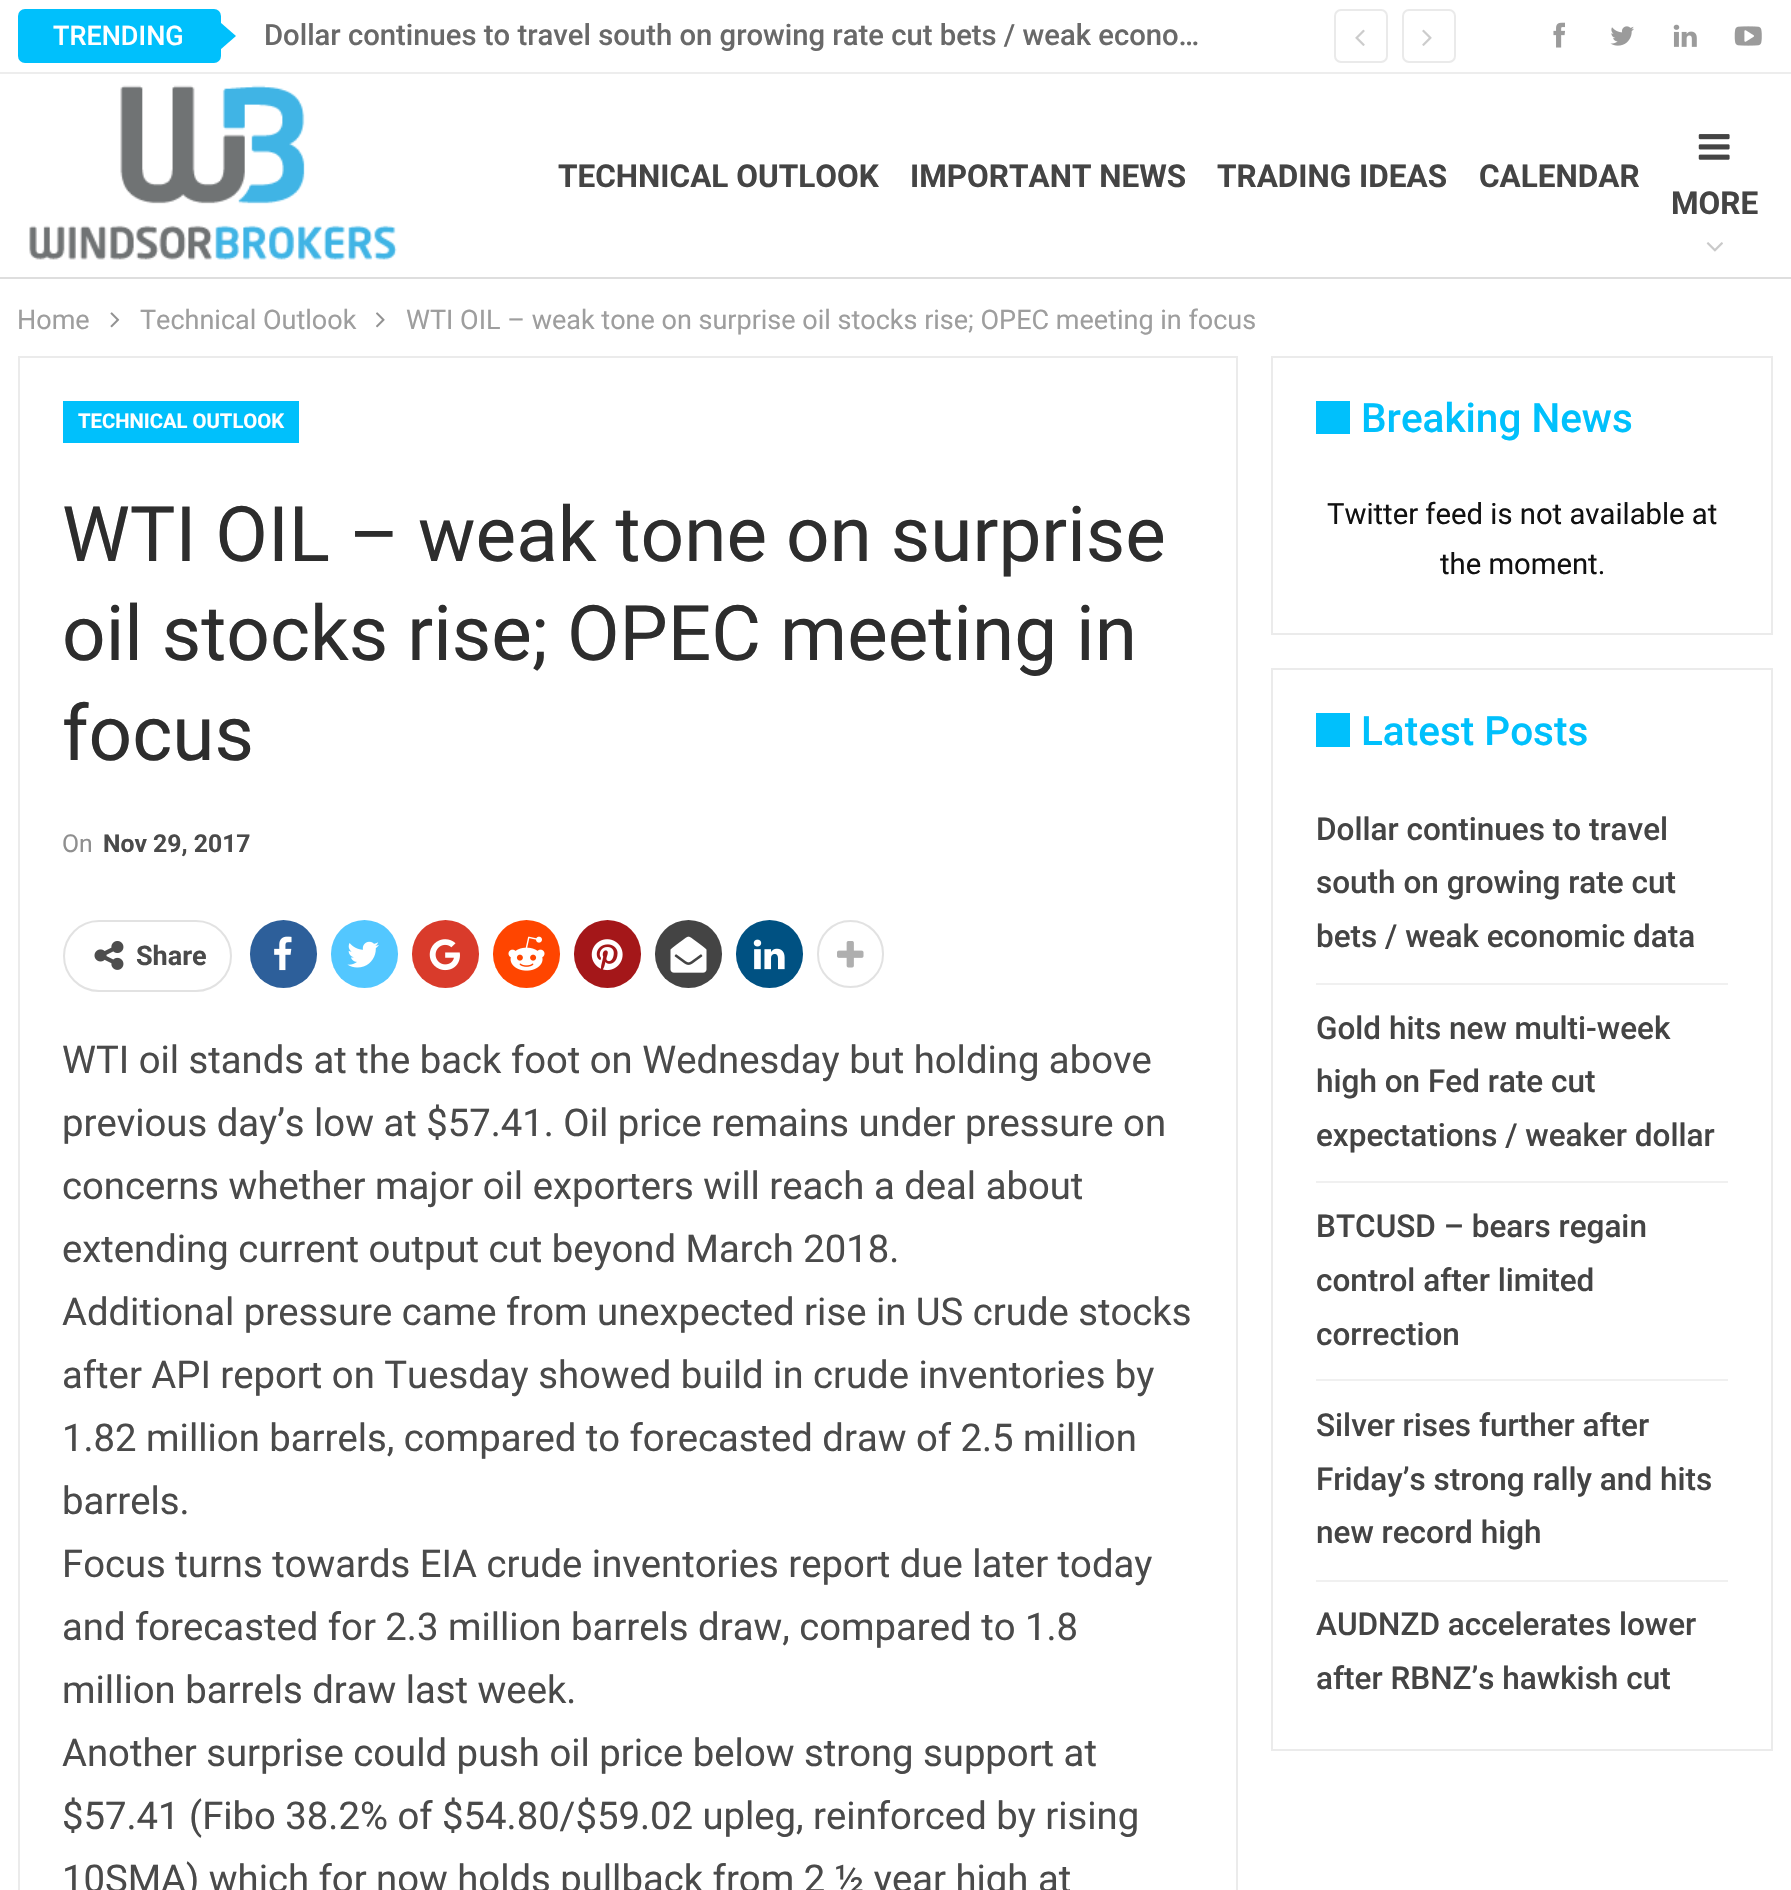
void draw(SkCanvas* canvas) {
    SkPaint paint;
    paint.setAntiAlias(true);
    canvas->clear(0xFFFFFFFF);
    paint.setColor(0xFFDEDEDE);
    canvas->drawRect(SkRect::MakeXYWH(0, 277, 1791, 2), paint);
    paint.setColor(0xFFEDEDED);
    canvas->drawRect(SkRect::MakeXYWH(0, 72, 1791, 2), paint);
    paint.setColor(0xFF00C0FC);
    canvas->drawRoundRect(SkRect::MakeXYWH(18, 9, 203, 54), 7, 7, paint);
    SkFont font1(fontMgr->matchFamilyStyle("Roboto", SkFontStyle(500, SkFontStyle::kNormal_Width, SkFontStyle::kUpright_Slant)), 27);
    font1.setSubpixel(true);
    paint.setColor(0xFFFFFFFF);
    canvas->drawString("TRENDING", 53, 45, font1, paint);
    paint.setColor(0xFF00C0FC);
    canvas->drawPath(SkPathBuilder().moveTo(220.5f, 49.5f).lineTo(220.5f, 22.5f).lineTo(236, 36).close().detach(), paint);
    SkFont font2(fontMgr->matchFamilyStyle("Roboto", SkFontStyle(500, SkFontStyle::kNormal_Width, SkFontStyle::kUpright_Slant)), 29.25f);
    font2.setSubpixel(true);
    paint.setColor(0xFF696969);
    canvas->drawString("Dollar continues to travel south on growing rate cut bets / weak econo…", 264, 45, font2, paint);
    paint.setStyle(SkPaint::kStroke_Style);
    paint.setStrokeWidth(2);
    paint.setColor(0xFFEAEAEA);
    canvas->drawRoundRect(SkRect::MakeXYWH(1335, 10, 52, 52), 6, 6, paint);
    canvas->drawImageRect(SkImages::DeferredFromEncodedData(SkData::MakeFromFileName("img1.png")), SkRect::MakeXYWH(1355, 29, 10, 17), SkSamplingOptions());
    canvas->drawRoundRect(SkRect::MakeXYWH(1403, 10, 52, 52), 6, 6, paint);
    canvas->drawImageRect(SkImages::DeferredFromEncodedData(SkData::MakeFromFileName("img2.png")), SkRect::MakeXYWH(1422, 29, 10, 17), SkSamplingOptions());
    canvas->drawImageRect(SkImages::DeferredFromEncodedData(SkData::MakeFromFileName("img3.png")), SkRect::MakeXYWH(1553, 22, 12, 26), SkSamplingOptions());
    canvas->drawImageRect(SkImages::DeferredFromEncodedData(SkData::MakeFromFileName("img4.png")), SkRect::MakeXYWH(1610, 26, 24, 20), SkSamplingOptions());
    canvas->drawImageRect(SkImages::DeferredFromEncodedData(SkData::MakeFromFileName("img5.png")), SkRect::MakeXYWH(1673, 24, 24, 23), SkSamplingOptions());
    canvas->drawImageRect(SkImages::DeferredFromEncodedData(SkData::MakeFromFileName("img6.png")), SkRect::MakeXYWH(1734, 26, 28, 20), SkSamplingOptions());
    canvas->drawImageRect(SkImages::DeferredFromEncodedData(SkData::MakeFromFileName("img7.png")), SkRect::MakeXYWH(29, 85, 368, 175), SkSamplingOptions());
    SkFont font3(fontMgr->matchFamilyStyle("Roboto", SkFontStyle::Bold()), 31.5f);
    font3.setSubpixel(true);
    paint.setStyle(SkPaint::kFill_Style);
    paint.setColor(0xFF444444);
    canvas->drawString("TECHNICAL OUTLOOK", 558, 187, font3, paint);
    canvas->drawString("IMPORTANT NEWS", 910, 187, font3, paint);
    canvas->drawString("TRADING IDEAS", 1217, 187, font3, paint);
    canvas->drawString("CALENDAR", 1479, 187, font3, paint);
    canvas->drawImageRect(SkImages::DeferredFromEncodedData(SkData::MakeFromFileName("img8.png")), SkRect::MakeXYWH(1698, 134, 32, 26), SkSamplingOptions());
    canvas->drawString("MORE", 1671, 214, font3, paint);
    canvas->drawImageRect(SkImages::DeferredFromEncodedData(SkData::MakeFromFileName("img9.png")), SkRect::MakeXYWH(1706, 242, 17, 10), SkSamplingOptions());
    SkFont font4(fontMgr->matchFamilyStyle("Roboto", SkFontStyle::Normal()), 27);
    font4.setSubpixel(true);
    paint.setColor(0xFF9E9E9E);
    canvas->drawString("Home", 17, 329, font4, paint);
    canvas->drawImageRect(SkImages::DeferredFromEncodedData(SkData::MakeFromFileName("img10.png")), SkRect::MakeXYWH(110, 312, 10, 16), SkSamplingOptions());
    canvas->drawString("Technical Outlook", 140, 329, font4, paint);
    canvas->drawImageRect(SkImages::DeferredFromEncodedData(SkData::MakeFromFileName("img11.png")), SkRect::MakeXYWH(376, 312, 9, 16), SkSamplingOptions());
    canvas->drawString("WTI OIL – weak tone on surprise oil stocks rise; OPEC meeting in focus", 406, 329, font4, paint);
    paint.setStyle(SkPaint::kStroke_Style);
    paint.setColor(0xFFEBEBEB);
    canvas->drawRect(SkRect::MakeXYWH(19, 357, 1218, 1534), paint);
    paint.setStyle(SkPaint::kFill_Style);
    paint.setColor(0xFF00C0FC);
    canvas->drawRect(SkRect::MakeXYWH(63, 401, 236, 42), paint);
    SkFont font5(fontMgr->matchFamilyStyle("Roboto", SkFontStyle::Bold()), 20.25f);
    font5.setSubpixel(true);
    paint.setColor(0xFFFFFFFF);
    canvas->drawString("TECHNICAL OUTLOOK", 78, 428, font5, paint);
    SkFont font6(fontMgr->matchFamilyStyle("Roboto", SkFontStyle::Normal()), 76.5f);
    font6.setSubpixel(true);
    paint.setColor(0xFF2D2D2D);
    canvas->drawString("WTI OIL – weak tone on surprise", 62, 561, font6, paint);
    canvas->drawString("oil stocks rise; OPEC meeting in", 62, 660, font6, paint);
    canvas->drawString("focus", 62, 760, font6, paint);
    SkFont font7(fontMgr->matchFamilyStyle("Roboto", SkFontStyle::Normal()), 24.75f);
    font7.setSubpixel(true);
    paint.setColor(0xFF8F8F8F);
    canvas->drawString("On", 62, 852, font7, paint);
    SkFont font8(fontMgr->matchFamilyStyle("Roboto", SkFontStyle::Bold()), 24.75f);
    font8.setSubpixel(true);
    paint.setColor(0xFF4A4A4A);
    canvas->drawString("Nov 29, 2017", 103, 852, font8, paint);
    paint.setStyle(SkPaint::kStroke_Style);
    paint.setColor(0xFFE2E2E2);
    canvas->drawRoundRect(SkRect::MakeXYWH(64, 921, 167, 70), 35, 35, paint);
    canvas->drawImageRect(SkImages::DeferredFromEncodedData(SkData::MakeFromFileName("img12.png")), SkRect::MakeXYWH(94, 941, 30, 29), SkSamplingOptions());
    SkFont font9(fontMgr->matchFamilyStyle("Roboto", SkFontStyle::Bold()), 27);
    font9.setSubpixel(true);
    paint.setStyle(SkPaint::kFill_Style);
    paint.setColor(0xFF4A4A4A);
    canvas->drawString("Share", 136, 965, font9, paint);
    paint.setColor(0xFF2D5F9A);
    canvas->drawRoundRect(SkRect::MakeXYWH(250, 920, 67, 68), 33.5f, 33.5f, paint);
    canvas->drawImageRect(SkImages::DeferredFromEncodedData(SkData::MakeFromFileName("img13.png")), SkRect::MakeXYWH(274, 936, 18, 35), SkSamplingOptions());
    paint.setColor(0xFF53C7FF);
    canvas->drawRoundRect(SkRect::MakeXYWH(331, 920, 67, 68), 33.5f, 33.5f, paint);
    canvas->drawImageRect(SkImages::DeferredFromEncodedData(SkData::MakeFromFileName("img14.png")), SkRect::MakeXYWH(347, 941, 32, 27), SkSamplingOptions());
    paint.setColor(0xFFD93B2B);
    canvas->drawRoundRect(SkRect::MakeXYWH(412, 920, 67, 68), 33.5f, 33.5f, paint);
    canvas->drawImageRect(SkImages::DeferredFromEncodedData(SkData::MakeFromFileName("img15.png")), SkRect::MakeXYWH(429, 939, 31, 32), SkSamplingOptions());
    paint.setColor(0xFFFF4500);
    canvas->drawRoundRect(SkRect::MakeXYWH(493, 920, 67, 68), 33.5f, 33.5f, paint);
    canvas->drawImageRect(SkImages::DeferredFromEncodedData(SkData::MakeFromFileName("img16.png")), SkRect::MakeXYWH(508, 936, 37, 35), SkSamplingOptions());
    paint.setColor(0xFFA41719);
    canvas->drawRoundRect(SkRect::MakeXYWH(574, 920, 67, 68), 33.5f, 33.5f, paint);
    canvas->drawImageRect(SkImages::DeferredFromEncodedData(SkData::MakeFromFileName("img17.png")), SkRect::MakeXYWH(591, 939, 32, 32), SkSamplingOptions());
    paint.setColor(0xFF444444);
    canvas->drawRoundRect(SkRect::MakeXYWH(655, 920, 67, 68), 33.5f, 33.5f, paint);
    canvas->drawImageRect(SkImages::DeferredFromEncodedData(SkData::MakeFromFileName("img18.png")), SkRect::MakeXYWH(670, 936, 37, 37), SkSamplingOptions());
    paint.setColor(0xFF005182);
    canvas->drawRoundRect(SkRect::MakeXYWH(736, 920, 67, 68), 33.5f, 33.5f, paint);
    canvas->drawImageRect(SkImages::DeferredFromEncodedData(SkData::MakeFromFileName("img19.png")), SkRect::MakeXYWH(753, 939, 32, 31), SkSamplingOptions());
    paint.setStyle(SkPaint::kStroke_Style);
    paint.setColor(0xFFE2E2E2);
    canvas->drawRoundRect(SkRect::MakeXYWH(818, 921, 65, 66), 32.5f, 32.5f, paint);
    canvas->drawImageRect(SkImages::DeferredFromEncodedData(SkData::MakeFromFileName("img20.png")), SkRect::MakeXYWH(837, 941, 27, 27), SkSamplingOptions());
    SkFont font10(fontMgr->matchFamilyStyle("Roboto", SkFontStyle::Normal()), 38.25f);
    font10.setSubpixel(true);
    paint.setStyle(SkPaint::kFill_Style);
    paint.setColor(0xFF4A4A4A);
    canvas->drawString("WTI oil stands at the back foot on Wednesday but holding above", 62, 1073, font10, paint);
    canvas->drawString("previous day’s low at $57.41. Oil price remains under pressure on", 62, 1136, font10, paint);
    canvas->drawString("concerns whether major oil exporters will reach a deal about", 62, 1199, font10, paint);
    canvas->drawString("extending current output cut beyond March 2018.", 62, 1262, font10, paint);
    canvas->drawString("Additional pressure came from unexpected rise in US crude stocks", 62, 1325, font10, paint);
    canvas->drawString("after API report on Tuesday showed build in crude inventories by", 62, 1388, font10, paint);
    canvas->drawString("1.82 million barrels, compared to forecasted draw of 2.5 million", 62, 1451, font10, paint);
    canvas->drawString("barrels.", 62, 1514, font10, paint);
    canvas->drawString("Focus turns towards EIA crude inventories report due later today", 62, 1577, font10, paint);
    canvas->drawString("and forecasted for 2.3 million barrels draw, compared to 1.8", 62, 1640, font10, paint);
    canvas->drawString("million barrels draw last week.", 62, 1703, font10, paint);
    canvas->drawString("Another surprise could push oil price below strong support at", 62, 1766, font10, paint);
    canvas->drawString("$57.41 (Fibo 38.2% of $54.80/$59.02 upleg, reinforced by rising", 62, 1829, font10, paint);
    canvas->drawString("10SMA) which for now holds pullback from 2 ½ year high at", 62, 1892, font10, paint);
    paint.setStyle(SkPaint::kStroke_Style);
    paint.setColor(0xFFEBEBEB);
    canvas->drawRect(SkRect::MakeXYWH(1272, 357, 500, 277), paint);
    paint.setStyle(SkPaint::kFill_Style);
    paint.setColor(0xFF00C0FC);
    canvas->drawRect(SkRect::MakeXYWH(1316, 401, 34, 33), paint);
    SkFont font11(fontMgr->matchFamilyStyle("Roboto", SkFontStyle(500, SkFontStyle::kNormal_Width, SkFontStyle::kUpright_Slant)), 40.5f);
    font11.setSubpixel(true);
    canvas->drawString("Breaking News", 1361, 432, font11, paint);
    SkFont font12(fontMgr->matchFamilyStyle("Roboto", SkFontStyle::Normal()), 29.25f);
    font12.setSubpixel(true);
    paint.setColor(0xFF111111);
    canvas->drawString("Twitter feed is not available at", 1327, 524, font12, paint);
    canvas->drawString("the moment.", 1440, 574, font12, paint);
    paint.setStyle(SkPaint::kStroke_Style);
    paint.setColor(0xFFEBEBEB);
    canvas->drawRect(SkRect::MakeXYWH(1272, 669, 500, 1081), paint);
    paint.setStyle(SkPaint::kFill_Style);
    paint.setColor(0xFF00C0FC);
    canvas->drawRect(SkRect::MakeXYWH(1316, 713, 34, 34), paint);
    canvas->drawString("Latest Posts", 1361, 745, font11, paint);
    paint.setColor(0xFFF0F0F0);
    canvas->drawRect(SkRect::MakeXYWH(1316, 983, 412, 2), paint);
    SkFont font13(fontMgr->matchFamilyStyle("Roboto", SkFontStyle(500, SkFontStyle::kNormal_Width, SkFontStyle::kUpright_Slant)), 31.5f);
    font13.setSubpixel(true);
    paint.setColor(0xFF444444);
    canvas->drawString("Dollar continues to travel", 1316, 840, font13, paint);
    canvas->drawString("south on growing rate cut", 1316, 893, font13, paint);
    canvas->drawString("bets / weak economic data", 1316, 947, font13, paint);
    paint.setColor(0xFFF0F0F0);
    canvas->drawRect(SkRect::MakeXYWH(1316, 1181, 412, 2), paint);
    paint.setColor(0xFF444444);
    canvas->drawString("Gold hits new multi-week", 1316, 1039, font13, paint);
    canvas->drawString("high on Fed rate cut", 1316, 1092, font13, paint);
    canvas->drawString("expectations / weaker dollar", 1316, 1146, font13, paint);
    paint.setColor(0xFFF0F0F0);
    canvas->drawRect(SkRect::MakeXYWH(1316, 1379, 412, 2), paint);
    paint.setColor(0xFF444444);
    canvas->drawString("BTCUSD – bears regain", 1316, 1237, font13, paint);
    canvas->drawString("control after limited", 1316, 1291, font13, paint);
    canvas->drawString("correction", 1316, 1345, font13, paint);
    paint.setColor(0xFFF0F0F0);
    canvas->drawRect(SkRect::MakeXYWH(1316, 1580, 412, 2), paint);
    paint.setColor(0xFF444444);
    canvas->drawString("Silver rises further after", 1316, 1436, font13, paint);
    canvas->drawString("Friday’s strong rally and hits", 1316, 1490, font13, paint);
    canvas->drawString("new record high", 1316, 1543, font13, paint);
    canvas->drawString("AUDNZD accelerates lower", 1316, 1635, font13, paint);
    canvas->drawString("after RBNZ’s hawkish cut", 1316, 1689, font13, paint);
}
